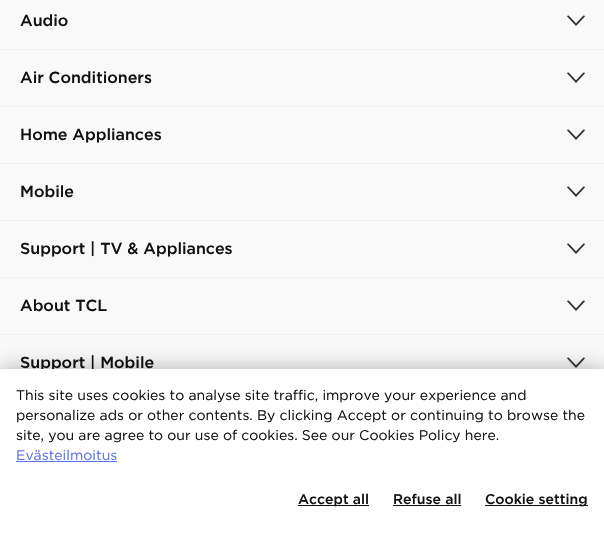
void draw(SkCanvas* canvas) {
    SkPaint paint;
    paint.setAntiAlias(true);
    canvas->clear(0xFFF9F9F9);
    paint.setColor(0xFFF0F0F0);
    canvas->drawRect(SkRect::MakeXYWH(0, 49, 604, 1), paint);
    SkFont font1(fontMgr->matchFamilyStyle("Gotham", SkFontStyle(500, SkFontStyle::kNormal_Width, SkFontStyle::kUpright_Slant)), 16);
    font1.setSubpixel(true);
    paint.setColor(0xFF111111);
    canvas->drawString("Audio", 20, 26, font1, paint);
    canvas->drawImageRect(SkImages::DeferredFromEncodedData(SkData::MakeFromFileName("img1.png")), SkRect::MakeXYWH(567, 15, 18, 11), SkSamplingOptions());
    paint.setColor(0xFFF0F0F0);
    canvas->drawRect(SkRect::MakeXYWH(0, 106, 604, 1), paint);
    paint.setColor(0xFF111111);
    canvas->drawString("Air Conditioners", 20, 83, font1, paint);
    canvas->drawImageRect(SkImages::DeferredFromEncodedData(SkData::MakeFromFileName("img1.png")), SkRect::MakeXYWH(567, 72, 18, 11), SkSamplingOptions());
    paint.setColor(0xFFF0F0F0);
    canvas->drawRect(SkRect::MakeXYWH(0, 163, 604, 1), paint);
    paint.setColor(0xFF111111);
    canvas->drawString("Home Appliances", 20, 140, font1, paint);
    canvas->drawImageRect(SkImages::DeferredFromEncodedData(SkData::MakeFromFileName("img1.png")), SkRect::MakeXYWH(567, 129, 18, 11), SkSamplingOptions());
    paint.setColor(0xFFF0F0F0);
    canvas->drawRect(SkRect::MakeXYWH(0, 220, 604, 1), paint);
    paint.setColor(0xFF111111);
    canvas->drawString("Mobile", 20, 197, font1, paint);
    canvas->drawImageRect(SkImages::DeferredFromEncodedData(SkData::MakeFromFileName("img1.png")), SkRect::MakeXYWH(567, 186, 18, 11), SkSamplingOptions());
    paint.setColor(0xFFF0F0F0);
    canvas->drawRect(SkRect::MakeXYWH(0, 277, 604, 1), paint);
    paint.setColor(0xFF111111);
    canvas->drawString("Support | TV & Appliances", 20, 254, font1, paint);
    canvas->drawImageRect(SkImages::DeferredFromEncodedData(SkData::MakeFromFileName("img1.png")), SkRect::MakeXYWH(567, 243, 18, 11), SkSamplingOptions());
    paint.setColor(0xFFF0F0F0);
    canvas->drawRect(SkRect::MakeXYWH(0, 334, 604, 1), paint);
    paint.setColor(0xFF111111);
    canvas->drawString("About TCL", 20, 311, font1, paint);
    canvas->drawImageRect(SkImages::DeferredFromEncodedData(SkData::MakeFromFileName("img1.png")), SkRect::MakeXYWH(567, 300, 18, 11), SkSamplingOptions());
    canvas->drawString("Support | Mobile", 20, 368, font1, paint);
    canvas->drawImageRect(SkImages::DeferredFromEncodedData(SkData::MakeFromFileName("img1.png")), SkRect::MakeXYWH(567, 357, 18, 11), SkSamplingOptions());
    paint.setColor(0x4D000000);
    paint.setMaskFilter(SkMaskFilter::MakeBlur(kNormal_SkBlurStyle, 10));
    canvas->drawRect(SkRect::MakeXYWH(0, 369, 604, 172), paint);
    paint.setMaskFilter(nullptr);
    paint.setColor(0xFFFFFFFF);
    canvas->drawRect(SkRect::MakeXYWH(0, 369, 604, 172), paint);
    SkFont font2(fontMgr->matchFamilyStyle("Gotham", SkFontStyle::Normal()), 14);
    font2.setSubpixel(true);
    paint.setColor(0xFF111111);
    canvas->drawString("This site uses cookies to analyse site traffic, improve your experience and", 16, 400, font2, paint);
    canvas->drawString("personalize ads or other contents. By clicking Accept or continuing to browse the", 16, 420, font2, paint);
    canvas->drawString("site, you are agree to our use of cookies. See our Cookies Policy here.", 16, 440, font2, paint);
    paint.setColor(0xFF5971E5);
    canvas->drawString("Evästeilmoitus", 16, 460, font2, paint);
    canvas->drawRect(SkRect::MakeXYWH(16, 461, 101, 1), paint);
    paint.setColor(0xFF111111);
    canvas->drawRect(SkRect::MakeXYWH(298, 505, 71, 1), paint);
    SkFont font3(fontMgr->matchFamilyStyle("Gotham", SkFontStyle(500, SkFontStyle::kNormal_Width, SkFontStyle::kUpright_Slant)), 14);
    font3.setSubpixel(true);
    canvas->drawString("Accept all", 298, 504, font3, paint);
    canvas->drawString("Refuse all", 393, 504, font3, paint);
    canvas->drawRect(SkRect::MakeXYWH(393, 505, 68, 1), paint);
    canvas->drawRect(SkRect::MakeXYWH(485, 505, 103, 1), paint);
    canvas->drawString("Cookie setting", 485, 504, font3, paint);
}
